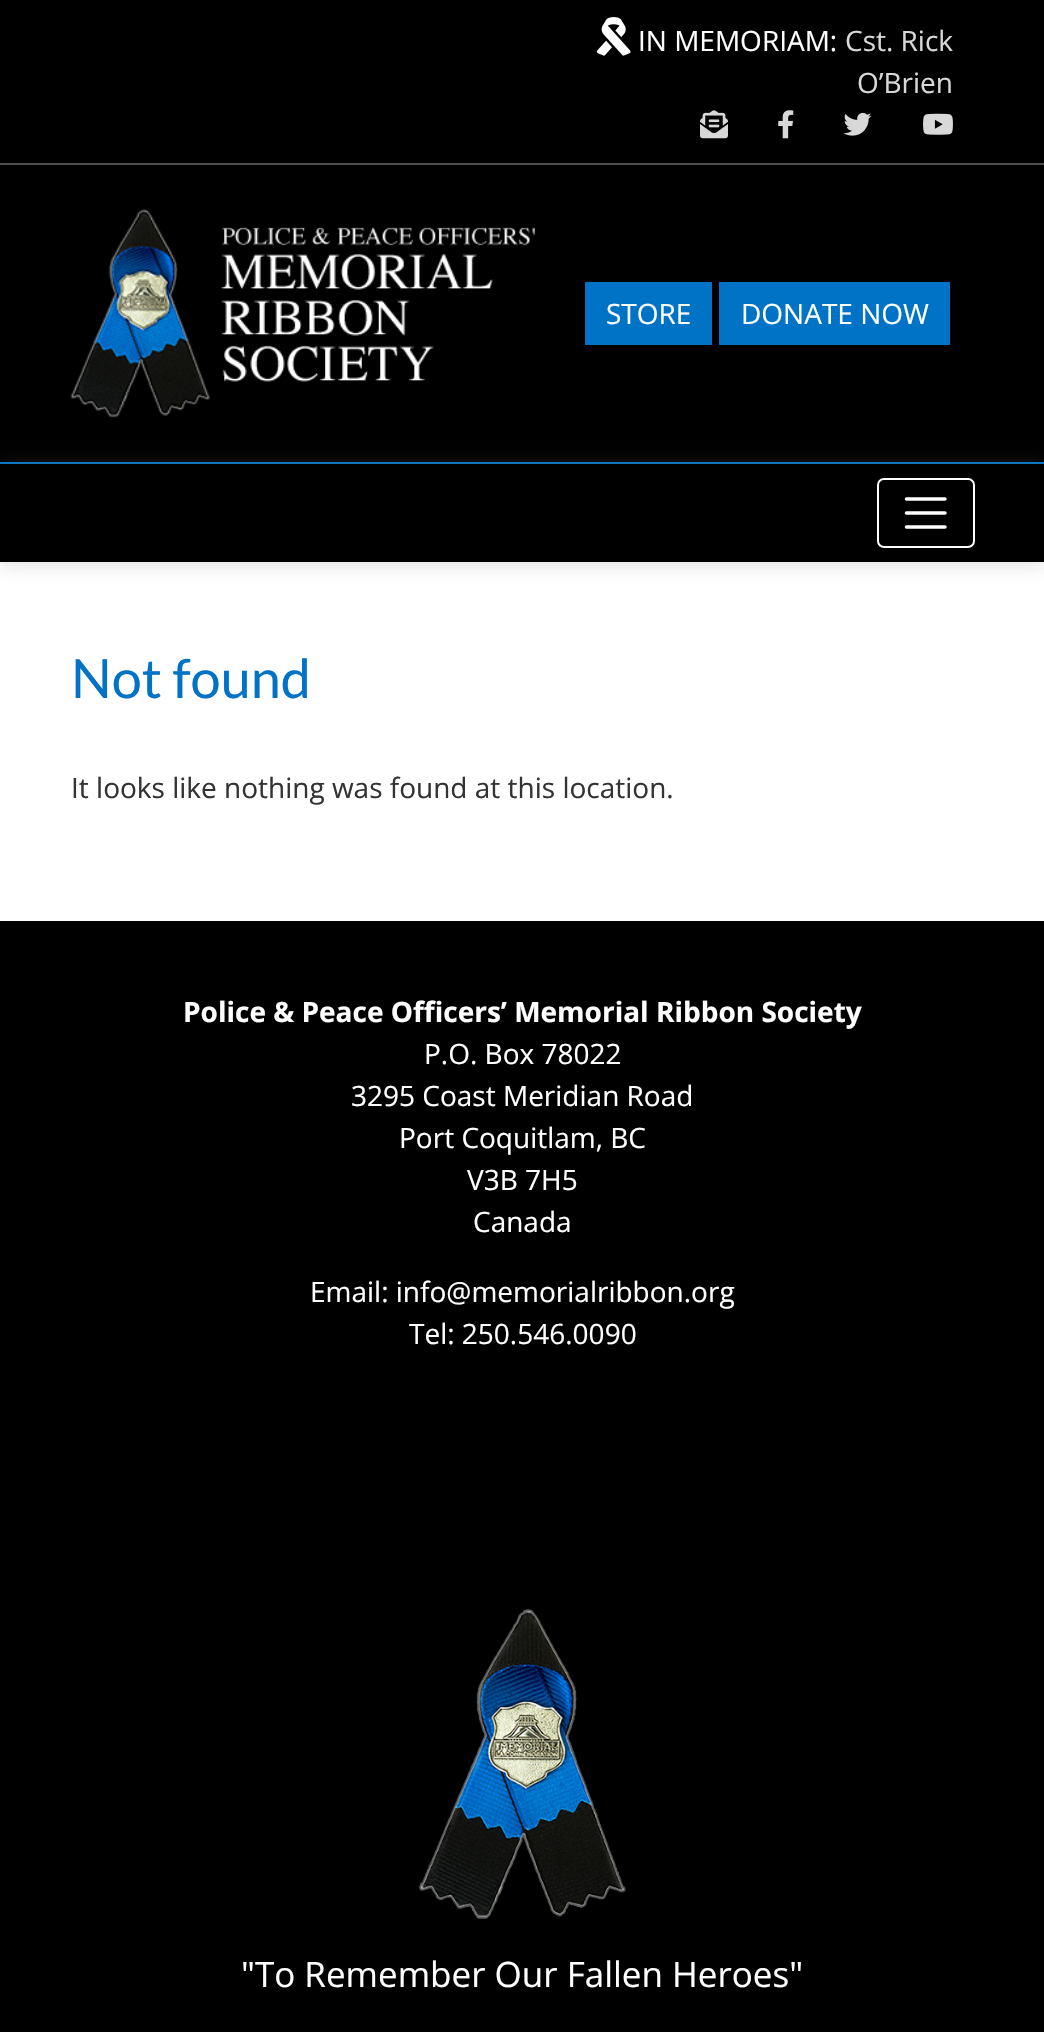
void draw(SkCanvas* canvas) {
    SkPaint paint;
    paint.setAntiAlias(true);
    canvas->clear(0xFFFFFFFF);
    paint.setColor(0xFF000000);
    canvas->drawRect(SkRect::MakeXYWH(0, 0, 1044, 163), paint);
    paint.setColor(0xFF4D4D4D);
    canvas->drawRect(SkRect::MakeXYWH(0, 163, 1044, 2), paint);
    canvas->drawImageRect(SkImages::DeferredFromEncodedData(SkData::MakeFromFileName("img1.png")), SkRect::MakeXYWH(596, 17, 35, 39), SkSamplingOptions());
    SkFont font1(fontMgr->matchFamilyStyle("Open Sans", SkFontStyle::Normal()), 28);
    font1.setSubpixel(true);
    paint.setColor(0xFFFFFFFF);
    canvas->drawString("IN MEMORIAM:", 638, 51, font1, paint);
    paint.setColor(0xFFD8D8D8);
    canvas->drawString("Cst. Rick", 845, 51, font1, paint);
    canvas->drawString("O’Brien", 857, 93, font1, paint);
    canvas->drawImageRect(SkImages::DeferredFromEncodedData(SkData::MakeFromFileName("img2.png")), SkRect::MakeXYWH(700, 110, 28, 29), SkSamplingOptions());
    canvas->drawImageRect(SkImages::DeferredFromEncodedData(SkData::MakeFromFileName("img3.png")), SkRect::MakeXYWH(778, 110, 16, 29), SkSamplingOptions());
    canvas->drawImageRect(SkImages::DeferredFromEncodedData(SkData::MakeFromFileName("img4.png")), SkRect::MakeXYWH(843, 112, 29, 24), SkSamplingOptions());
    canvas->drawImageRect(SkImages::DeferredFromEncodedData(SkData::MakeFromFileName("img5.png")), SkRect::MakeXYWH(923, 113, 30, 22), SkSamplingOptions());
    paint.setColor(0xFF000000);
    canvas->drawRect(SkRect::MakeXYWH(0, 165, 1044, 297), paint);
    paint.setColor(0xFF0073C7);
    canvas->drawRect(SkRect::MakeXYWH(0, 462, 1044, 2), paint);
    canvas->drawImageRect(SkImages::DeferredFromEncodedData(SkData::MakeFromFileName("img6.png")), SkRect::MakeXYWH(70, 209, 465, 209), SkSamplingOptions());
    canvas->drawRect(SkRect::MakeXYWH(585, 282, 127, 63), paint);
    paint.setColor(0xFFFFFFFF);
    canvas->drawString("STORE", 606, 324, font1, paint);
    paint.setColor(0xFF0073C7);
    canvas->drawRect(SkRect::MakeXYWH(719, 282, 231, 63), paint);
    paint.setColor(0xFFFFFFFF);
    canvas->drawString("DONATE NOW", 741, 324, font1, paint);
    paint.setColor(0x4D93948E);
    paint.setMaskFilter(SkMaskFilter::MakeBlur(kNormal_SkBlurStyle, 9));
    canvas->drawRect(SkRect::MakeXYWH(0, 467, 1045, 98), paint);
    paint.setMaskFilter(nullptr);
    paint.setColor(0xFF000000);
    canvas->drawRect(SkRect::MakeXYWH(0, 464, 1044, 98), paint);
    paint.setStyle(SkPaint::kStroke_Style);
    paint.setStrokeWidth(2);
    paint.setColor(0xFFFFFFFF);
    canvas->drawRoundRect(SkRect::MakeXYWH(878, 479, 96, 68), 6, 6, paint);
    paint.setStrokeWidth(3.5f);
    paint.setStrokeCap(SkPaint::kRound_Cap);
    canvas->drawPath(SkPathBuilder().moveTo(906.5f, 499).lineTo(945, 499).moveTo(906.5f, 513).lineTo(945, 513).moveTo(906.5f, 527).lineTo(945, 527).detach(), paint);
    SkFont font2(fontMgr->matchFamilyStyle("Lato", SkFontStyle::Normal()), 54);
    font2.setSubpixel(true);
    paint.setStyle(SkPaint::kFill_Style);
    paint.setColor(0xFF0073C7);
    canvas->drawString("Not found", 71, 698, font2, paint);
    paint.setColor(0xFF333333);
    canvas->drawString("It looks like nothing was found at this location.", 71, 798, font1, paint);
    paint.setColor(0xFF000000);
    canvas->drawRect(SkRect::MakeXYWH(0, 921, 1044, 1111), paint);
    SkFont font3(fontMgr->matchFamilyStyle("Open Sans", SkFontStyle::Bold()), 28);
    font3.setSubpixel(true);
    paint.setColor(0xFFFFFFFF);
    canvas->drawString("Police & Peace Officers’ Memorial Ribbon Society", 183, 1022, font3, paint);
    canvas->drawString("P.O. Box 78022", 424, 1064, font1, paint);
    canvas->drawString("3295 Coast Meridian Road", 351, 1106, font1, paint);
    canvas->drawString("Port Coquitlam, BC", 399, 1148, font1, paint);
    canvas->drawString("V3B 7H5", 467, 1190, font1, paint);
    canvas->drawString("Canada", 473, 1232, font1, paint);
    canvas->drawString("Email: info@memorialribbon.org", 310, 1302, font1, paint);
    canvas->drawString("Tel: 250.546.0090", 409, 1344, font1, paint);
    canvas->drawImageRect(SkImages::DeferredFromEncodedData(SkData::MakeFromFileName("img7.png")), SkRect::MakeXYWH(419, 1609, 207, 310), SkSamplingOptions());
    SkFont font4(fontMgr->matchFamilyStyle("Open Sans", SkFontStyle::Normal()), 35);
    font4.setSubpixel(true);
    canvas->drawString("\"To Remember Our Fallen Heroes\"", 241, 1987, font4, paint);
}
